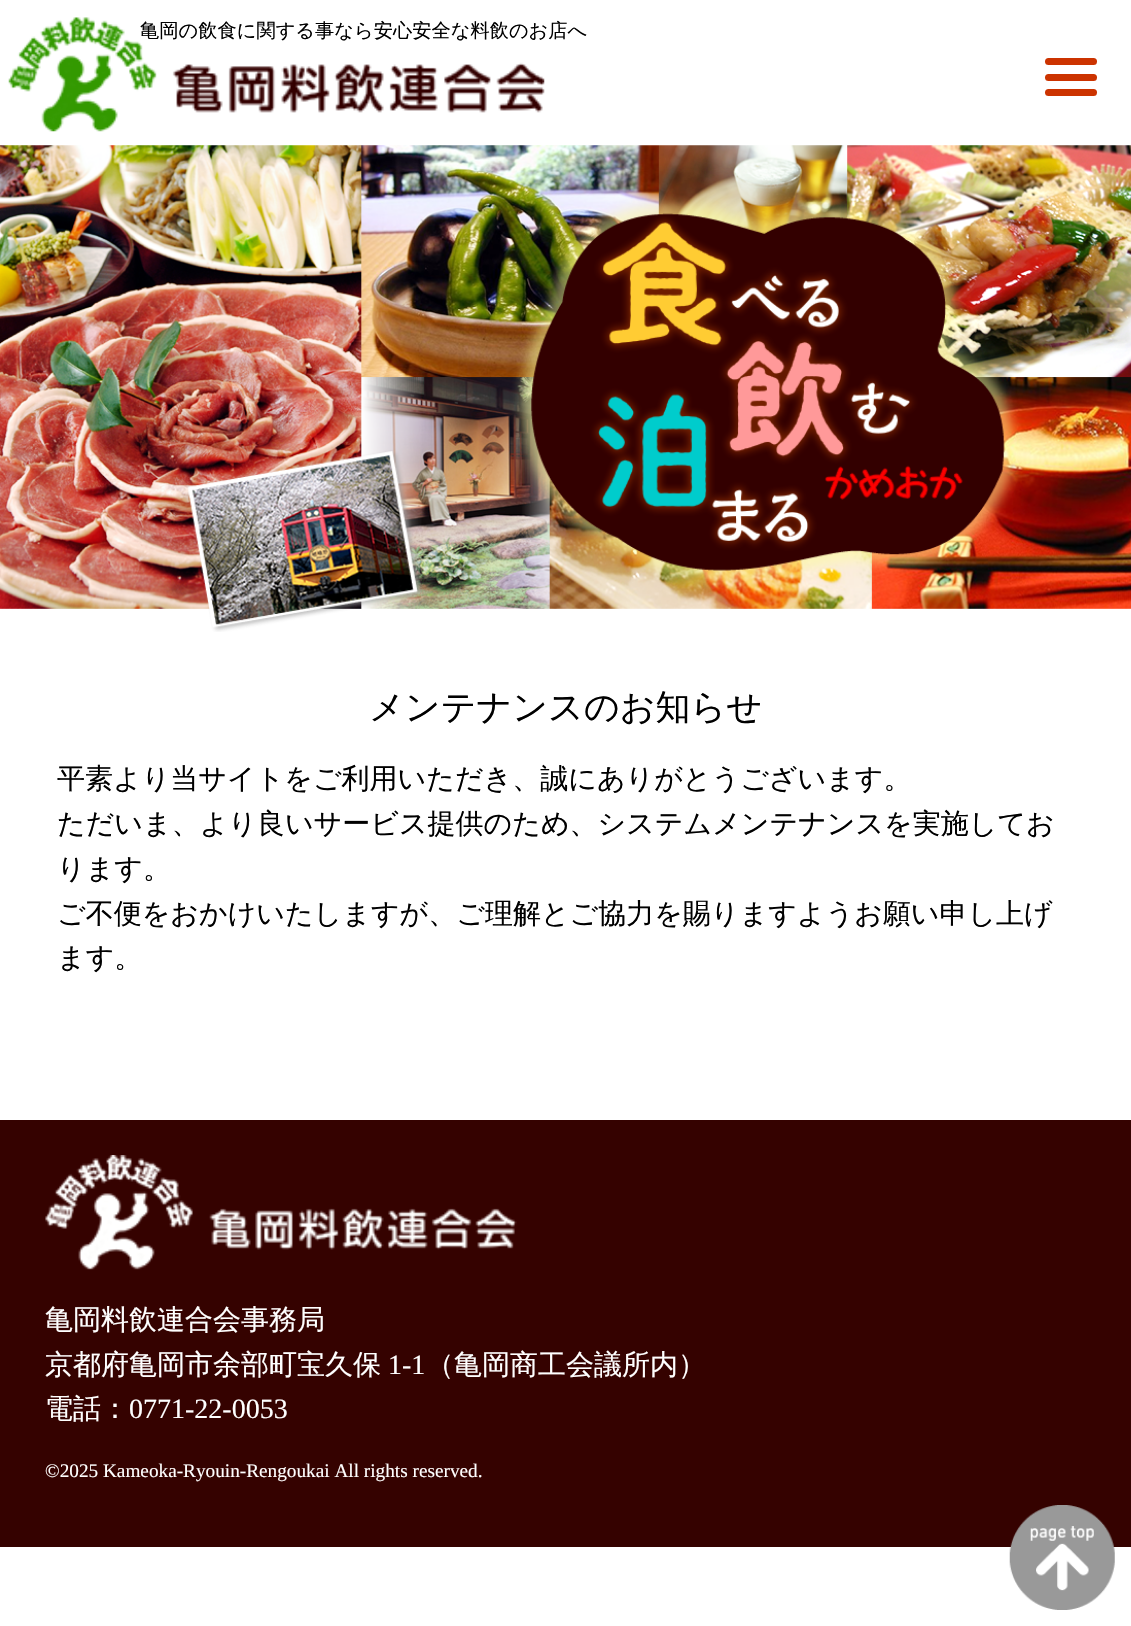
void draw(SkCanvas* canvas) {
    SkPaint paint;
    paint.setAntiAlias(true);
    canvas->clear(0xFFFFFFFF);
    canvas->drawImageRect(SkImages::DeferredFromEncodedData(SkData::MakeFromFileName("img1.png")), SkRect::MakeXYWH(8, 17, 537, 115), SkSamplingOptions());
    SkFont font1(fontMgr->matchFamilyStyle("WenQuanYi Zen Hei", SkFontStyle(500, SkFontStyle::kNormal_Width, SkFontStyle::kUpright_Slant)), 19.25f);
    font1.setSubpixel(true);
    paint.setColor(0xFF000000);
    canvas->drawString("亀岡の飲食に関する事なら安心安全な料飲のお店へ", 140, 37, font1, paint);
    paint.setColor(0xFFCC3300);
    canvas->drawRoundRect(SkRect::MakeXYWH(1045, 58, 52, 7), 3.5f, 3.5f, paint);
    canvas->drawRoundRect(SkRect::MakeXYWH(1045, 74, 52, 7), 3.5f, 3.5f, paint);
    canvas->drawRoundRect(SkRect::MakeXYWH(1045, 89, 52, 7), 3.5f, 3.5f, paint);
    canvas->drawImageRect(SkImages::DeferredFromEncodedData(SkData::MakeFromFileName("img2.png")), SkRect::MakeXYWH(0, 145, 1131, 487), SkSamplingOptions());
    SkFont font2(fontMgr->matchFamilyStyle("WenQuanYi Zen Hei", SkFontStyle(500, SkFontStyle::kNormal_Width, SkFontStyle::kUpright_Slant)), 35);
    font2.setSubpixel(true);
    paint.setColor(0xFF000000);
    canvas->drawString("メンテナンスのお知らせ", 369, 719, font2, paint);
    SkFont font3(fontMgr->matchFamilyStyle("WenQuanYi Zen Hei", SkFontStyle(500, SkFontStyle::kNormal_Width, SkFontStyle::kUpright_Slant)), 28);
    font3.setSubpixel(true);
    canvas->drawString("平素より当サイトをご利用いただき、誠にありがとうございます。", 57, 788, font3, paint);
    canvas->drawString("ただいま、より良いサービス提供のため、システムメンテナンスを実施してお", 57, 833, font3, paint);
    canvas->drawString("ります。", 57, 878, font3, paint);
    canvas->drawString("ご不便をおかけいたしますが、ご理解とご協力を賜りますようお願い申し上げ", 57, 923, font3, paint);
    canvas->drawString("ます。", 57, 967, font3, paint);
    paint.setColor(0xFF350200);
    canvas->drawRect(SkRect::MakeXYWH(0, 1120, 1131, 427), paint);
    canvas->drawImageRect(SkImages::DeferredFromEncodedData(SkData::MakeFromFileName("img3.png")), SkRect::MakeXYWH(45, 1155, 472, 115), SkSamplingOptions());
    paint.setColor(0xFFFFFFFF);
    canvas->drawString("亀岡料飲連合会事務局", 45, 1329, font3, paint);
    canvas->drawString("京都府亀岡市余部町宝久保", 45, 1374, font3, paint);
    SkFont font4(fontMgr->matchFamilyStyle("Liberation Serif", SkFontStyle::Normal()), 28);
    font4.setSubpixel(true);
    canvas->drawString("1-1", 388, 1374, font4, paint);
    canvas->drawString("（亀岡商工会議所内）", 426, 1374, font3, paint);
    canvas->drawString("電話：", 45, 1418, font3, paint);
    canvas->drawString("0771-22-0053", 129, 1418, font4, paint);
    SkFont font5(fontMgr->matchFamilyStyle("Liberation Serif", SkFontStyle::Normal()), 19.25f);
    font5.setSubpixel(true);
    canvas->drawString("©2025 Kameoka-Ryouin-Rengoukai All rights reserved.", 45, 1477, font5, paint);
    canvas->drawImageRect(SkImages::DeferredFromEncodedData(SkData::MakeFromFileName("img4.png")), SkRect::MakeXYWH(1009, 1505, 106, 105), SkSamplingOptions());
}
